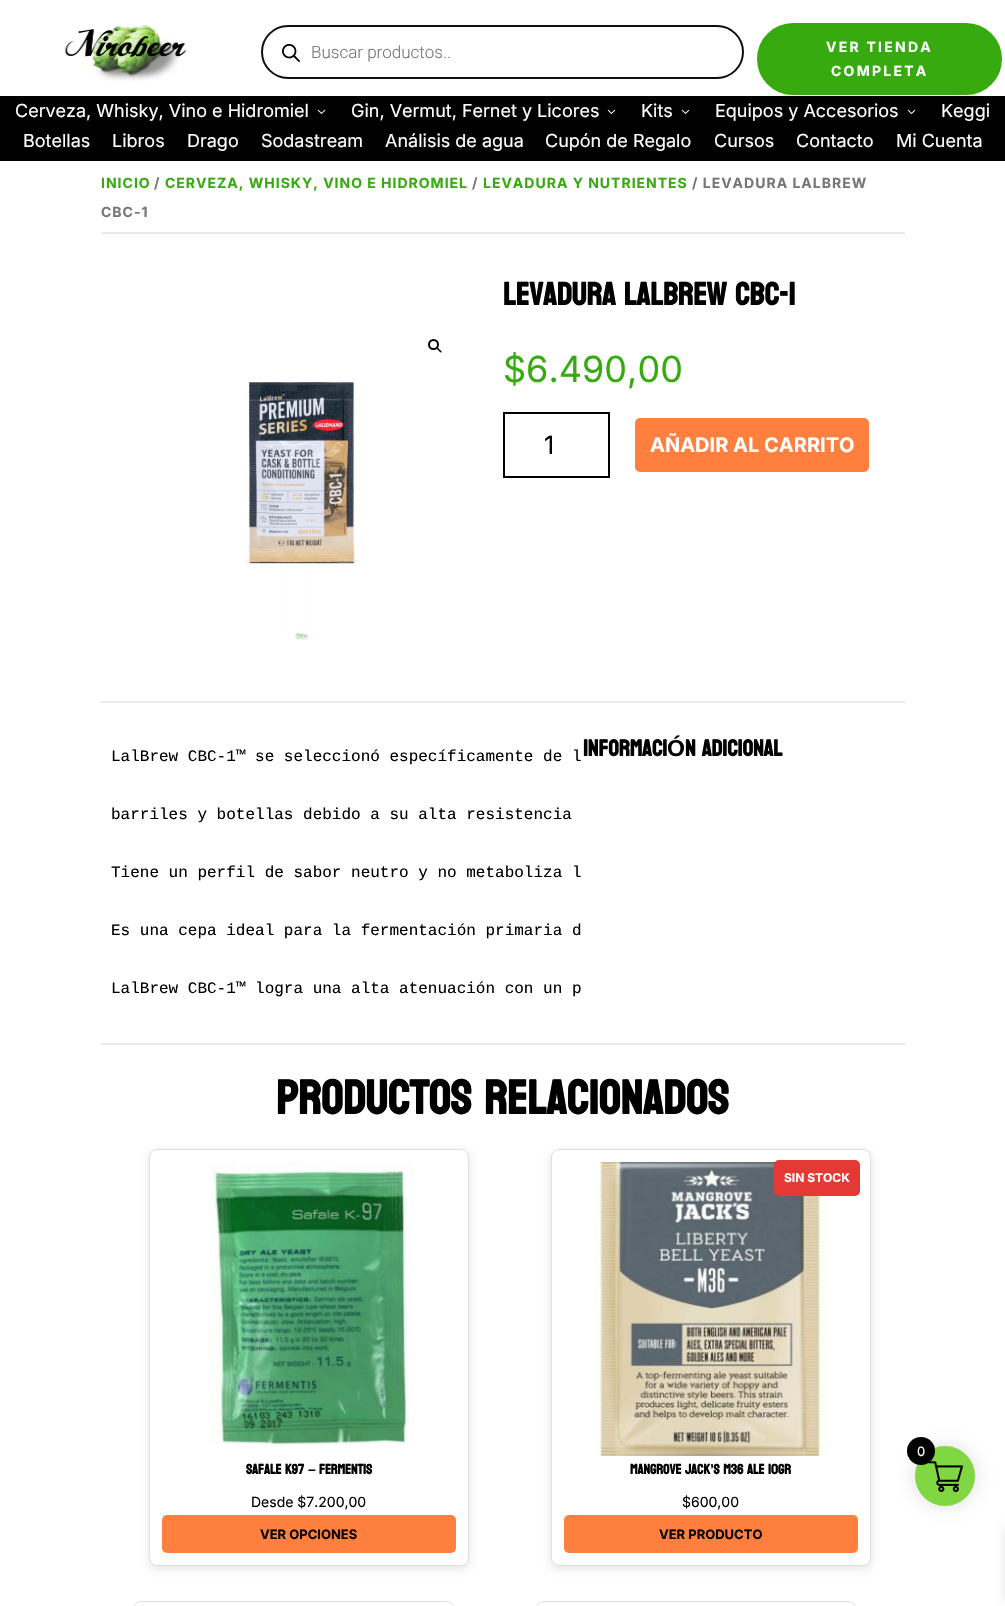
void draw(SkCanvas* canvas) {
    SkPaint paint;
    paint.setAntiAlias(true);
    auto spacedText = [&](const char* s, float x, float y, const SkFont& font, const SkPaint& ink, float letter, float word) {
        std::vector<SkGlyphID> glyphs(font.countText(s, strlen(s), SkTextEncoding::kUTF8));
        std::vector<float> xs(glyphs.size());
        font.textToGlyphs(s, strlen(s), SkTextEncoding::kUTF8, glyphs);
        font.getXPos(glyphs, xs, x);
        float extra = 0;
        for (size_t i = 0; i < glyphs.size(); i++) {
            xs[i] += extra;
            extra += letter + word * (glyphs[i] == font.unicharToGlyph(' '));
        }
        canvas->drawTextBlob(SkTextBlob::MakeFromPosHGlyphs(glyphs, xs, y, font), 0, 0, ink);
    };
    canvas->clear(0xFFFFFFFF);
    canvas->drawImageRect(SkImages::DeferredFromEncodedData(SkData::MakeFromFileName("img1.png")), SkRect::MakeXYWH(64, 25, 123, 56), SkSamplingOptions());
    paint.setStyle(SkPaint::kStroke_Style);
    paint.setStrokeWidth(2);
    paint.setColor(0xFF0F0F0F);
    canvas->drawRoundRect(SkRect::MakeXYWH(262, 26, 481, 52), 26, 26, paint);
    canvas->drawImageRect(SkImages::DeferredFromEncodedData(SkData::MakeFromFileName("img2.png")), SkRect::MakeXYWH(282, 44, 18, 18), SkSamplingOptions());
    SkFont font1(fontMgr->matchFamilyStyle("Roboto", SkFontStyle(300, SkFontStyle::kNormal_Width, SkFontStyle::kUpright_Slant)), 17);
    font1.setSubpixel(true);
    paint.setStyle(SkPaint::kFill_Style);
    paint.setColor(0xFF767676);
    canvas->drawString("Buscar productos..", 311, 58, font1, paint);
    paint.setColor(0xFF36AA0F);
    canvas->drawRoundRect(SkRect::MakeXYWH(755.5f, 21.5f, 248, 75), 37.5f, 37.5f, paint);
    paint.setStyle(SkPaint::kStroke_Style);
    paint.setStrokeWidth(3);
    paint.setColor(0xFFFFFFFF);
    canvas->drawRoundRect(SkRect::MakeXYWH(755.5f, 21.5f, 248, 75), 37.5f, 37.5f, paint);
    SkFont font2(fontMgr->matchFamilyStyle("Inter", SkFontStyle::Bold()), 14);
    font2.setSubpixel(true);
    paint.setStyle(SkPaint::kFill_Style);
    spacedText("VER TIENDA", 826, 52, font2, paint, 2.25f, 0);
    spacedText("COMPLETA", 831, 76, font2, paint, 2.25f, 0);
    paint.setColor(0xFF000000);
    canvas->drawRect(SkRect::MakeXYWH(0, 96, 1005, 65), paint);
    SkFont font3(fontMgr->matchFamilyStyle("Inter", SkFontStyle::Normal()), 18);
    font3.setSubpixel(true);
    paint.setColor(0xFFFFFFFF);
    canvas->drawString("Cerveza, Whisky, Vino e Hidromiel", 15, 117, font3, paint);
    canvas->drawImageRect(SkImages::DeferredFromEncodedData(SkData::MakeFromFileName("img3.png")), SkRect::MakeXYWH(317, 109, 9, 5), SkSamplingOptions());
    canvas->drawString("Gin, Vermut, Fernet y Licores", 351, 117, font3, paint);
    canvas->drawImageRect(SkImages::DeferredFromEncodedData(SkData::MakeFromFileName("img3.png")), SkRect::MakeXYWH(607, 109, 9, 5), SkSamplingOptions());
    canvas->drawString("Kits", 641, 117, font3, paint);
    canvas->drawImageRect(SkImages::DeferredFromEncodedData(SkData::MakeFromFileName("img3.png")), SkRect::MakeXYWH(681, 109, 9, 5), SkSamplingOptions());
    canvas->drawString("Equipos y Accesorios", 715, 117, font3, paint);
    canvas->drawImageRect(SkImages::DeferredFromEncodedData(SkData::MakeFromFileName("img3.png")), SkRect::MakeXYWH(907, 109, 9, 5), SkSamplingOptions());
    canvas->drawString("Keggi", 941, 117, font3, paint);
    canvas->drawString("Botellas", 23, 147, font3, paint);
    canvas->drawString("Libros", 112, 147, font3, paint);
    canvas->drawString("Drago", 187, 147, font3, paint);
    canvas->drawString("Sodastream", 261, 147, font3, paint);
    canvas->drawString("Análisis de agua", 385, 147, font3, paint);
    canvas->drawString("Cupón de Regalo", 545, 147, font3, paint);
    canvas->drawString("Cursos", 714, 147, font3, paint);
    canvas->drawString("Contacto", 796, 147, font3, paint);
    canvas->drawString("Mi Cuenta", 896, 147, font3, paint);
    paint.setColor(0xFF36AA0F);
    spacedText("INICIO", 101, 188, font2, paint, 1, 0);
    paint.setColor(0xFF767676);
    spacedText("/", 154, 188, font2, paint, 1, 0);
    paint.setColor(0xFF36AA0F);
    spacedText("CERVEZA, WHISKY, VINO E HIDROMIEL", 165, 188, font2, paint, 1, 0);
    paint.setColor(0xFF767676);
    spacedText("/", 472, 188, font2, paint, 1, 0);
    paint.setColor(0xFF36AA0F);
    spacedText("LEVADURA Y NUTRIENTES", 483, 188, font2, paint, 1, 0);
    paint.setColor(0xFF767676);
    spacedText("/ LEVADURA LALBREW", 692, 188, font2, paint, 1, 0);
    spacedText("CBC-1", 101, 217, font2, paint, 1, 0);
    paint.setColor(0xFFEBEBEB);
    canvas->drawRect(SkRect::MakeXYWH(101, 232, 804, 2), paint);
    paint.setStyle(SkPaint::kStroke_Style);
    paint.setStrokeWidth(2);
    paint.setColor(0xFF000000);
    canvas->drawCircle(433.5f, 344.5f, 4.5f, paint);
    paint.setStyle(SkPaint::kFill_Style);
    canvas->drawPath(SkPathBuilder().moveTo(437, 347.5f).cubicTo(438, 347, 439, 349, 439.5f, 349.5f).cubicTo(440, 350, 442.5f, 351.5f, 441.5f, 352.5f).cubicTo(440.5f, 353, 439, 351, 438.5f, 350.5f).cubicTo(438, 350, 436, 348.5f, 437, 347.5f).close().detach(), paint);
    canvas->drawImageRect(SkImages::DeferredFromEncodedData(SkData::MakeFromFileName("img4.png")), SkRect::MakeXYWH(244, 382, 116, 258), SkSamplingOptions());
    SkFont font4(fontMgr->matchFamilyStyle("Bayon", SkFontStyle::Bold()), 32);
    font4.setSubpixel(true);
    canvas->drawString("LEVADURA LALBREW CBC-1", 503, 305, font4, paint);
    SkFont font5(fontMgr->matchFamilyStyle("Inter", SkFontStyle::Normal()), 36);
    font5.setSubpixel(true);
    paint.setColor(0xFF36AA0F);
    canvas->drawString("$6.490,00", 503, 382, font5, paint);
    paint.setStyle(SkPaint::kStroke_Style);
    paint.setColor(0xFF000000);
    canvas->drawRect(SkRect::MakeXYWH(504, 413, 105, 64), paint);
    SkFont font6(fontMgr->matchFamilyStyle("Inter", SkFontStyle::Normal()), 25);
    font6.setSubpixel(true);
    paint.setStyle(SkPaint::kFill_Style);
    canvas->drawString("1", 544, 454, font6, paint);
    paint.setColor(0xFFFF7F3F);
    canvas->drawRoundRect(SkRect::MakeXYWH(635, 418, 234, 54), 5, 5, paint);
    SkFont font7(fontMgr->matchFamilyStyle("Inter", SkFontStyle::Bold()), 20);
    font7.setSubpixel(true);
    paint.setColor(0xFFFFFFFF);
    canvas->drawString("AÑADIR AL CARRITO", 650, 452, font7, paint);
    paint.setColor(0xFFEBEBEB);
    canvas->drawRect(SkRect::MakeXYWH(101, 701, 804, 2), paint);
    SkFont font8(fontMgr->matchFamilyStyle("Bayon", SkFontStyle::Bold()), 23);
    font8.setSubpixel(true);
    paint.setColor(0xFF000000);
    canvas->drawString("INFORMACI", 583, 756, font8, paint);
    SkFont font9(fontMgr->matchFamilyStyle("Liberation Sans", SkFontStyle::Bold()), 23);
    font9.setSubpixel(true);
    canvas->drawString("Ó", 667, 756, font9, paint);
    canvas->drawString("N ADICIONAL", 685, 756, font8, paint);
    SkFont font10(fontMgr->matchFamilyStyle("Liberation Mono", SkFontStyle::Normal()), 16);
    font10.setSubpixel(true);
    canvas->drawString("LalBrew CBC-1™ se seleccionó específicamente de l", 111, 761, font10, paint);
    canvas->drawString("barriles y botellas debido a su alta resistencia", 111, 819, font10, paint);
    canvas->drawString("Tiene un perfil de sabor neutro y no metaboliza l", 111, 877, font10, paint);
    canvas->drawString("Es una cepa ideal para la fermentación primaria d", 111, 935, font10, paint);
    canvas->drawString("LalBrew CBC-1™ logra una alta atenuación con un p", 111, 993, font10, paint);
    paint.setColor(0xFFEBEBEB);
    canvas->drawRect(SkRect::MakeXYWH(101, 1043, 804, 2), paint);
    SkFont font11(fontMgr->matchFamilyStyle("Bayon", SkFontStyle::Bold()), 48);
    font11.setSubpixel(true);
    paint.setColor(0xFF000000);
    canvas->drawString("PRODUCTOS RELACIONADOS", 276, 1114, font11, paint);
    paint.setColor(0x1A000000);
    paint.setMaskFilter(SkMaskFilter::MakeBlur(kNormal_SkBlurStyle, 4));
    canvas->drawRoundRect(SkRect::MakeXYWH(149, 1152, 320, 417), 8, 8, paint);
    paint.setMaskFilter(nullptr);
    paint.setColor(0xFFFFFFFF);
    canvas->drawRoundRect(SkRect::MakeXYWH(149.5f, 1149.5f, 319, 416), 7.5f, 7.5f, paint);
    paint.setStyle(SkPaint::kStroke_Style);
    paint.setStrokeWidth(1);
    paint.setColor(0xFFE0E0E0);
    canvas->drawRoundRect(SkRect::MakeXYWH(149.5f, 1149.5f, 319, 416), 7.5f, 7.5f, paint);
    canvas->drawImageRect(SkImages::DeferredFromEncodedData(SkData::MakeFromFileName("img5.png")), SkRect::MakeXYWH(209, 1162, 204, 284), SkSamplingOptions());
    SkFont font12(fontMgr->matchFamilyStyle("Bayon", SkFontStyle::Bold()), 14);
    font12.setSubpixel(true);
    paint.setStyle(SkPaint::kFill_Style);
    paint.setColor(0xFF000000);
    canvas->drawString("SAFALE K97", 246, 1474, font12, paint);
    SkFont font13(fontMgr->matchFamilyStyle("Liberation Sans", SkFontStyle::Bold()), 14);
    font13.setSubpixel(true);
    canvas->drawString("–", 308, 1474, font13, paint);
    canvas->drawString("FERMENTIS", 319, 1474, font12, paint);
    SkFont font14(fontMgr->matchFamilyStyle("Inter", SkFontStyle::Normal()), 14);
    font14.setSubpixel(true);
    canvas->drawString("Desde $7.200,00", 251, 1507, font14, paint);
    paint.setColor(0xFFFF7F3F);
    canvas->drawRoundRect(SkRect::MakeXYWH(162, 1515, 294, 38), 5, 5, paint);
    SkFont font15(fontMgr->matchFamilyStyle("Inter", SkFontStyle::Bold()), 13);
    font15.setSubpixel(true);
    paint.setColor(0xFF000000);
    canvas->drawString("VER OPCIONES", 260, 1539, font15, paint);
    paint.setColor(0x1A000000);
    paint.setMaskFilter(SkMaskFilter::MakeBlur(kNormal_SkBlurStyle, 4));
    canvas->drawRoundRect(SkRect::MakeXYWH(551, 1152, 320, 417), 8, 8, paint);
    paint.setMaskFilter(nullptr);
    paint.setColor(0xFFFFFFFF);
    canvas->drawRoundRect(SkRect::MakeXYWH(551.5f, 1149.5f, 319, 416), 7.5f, 7.5f, paint);
    paint.setStyle(SkPaint::kStroke_Style);
    paint.setColor(0xFFE0E0E0);
    canvas->drawRoundRect(SkRect::MakeXYWH(551.5f, 1149.5f, 319, 416), 7.5f, 7.5f, paint);
    canvas->drawImageRect(SkImages::DeferredFromEncodedData(SkData::MakeFromFileName("img6.png")), SkRect::MakeXYWH(595, 1162, 232, 294), SkSamplingOptions());
    paint.setStyle(SkPaint::kFill_Style);
    paint.setColor(0xFFE53935);
    canvas->drawRoundRect(SkRect::MakeXYWH(774, 1160, 86, 36), 5, 5, paint);
    SkFont font16(fontMgr->matchFamilyStyle("Inter", SkFontStyle::Bold()), 12);
    font16.setSubpixel(true);
    paint.setColor(0xFFFFFFFF);
    canvas->drawString("SIN STOCK", 784, 1182, font16, paint);
    paint.setColor(0xFF000000);
    canvas->drawString("MANGROVE JACK S M36 ALE 10GR", 630, 1474, font12, paint);
    canvas->drawString("’", 710, 1474, font13, paint);
    canvas->drawString("$600,00", 682, 1507, font14, paint);
    paint.setColor(0xFFFF7F3F);
    canvas->drawRoundRect(SkRect::MakeXYWH(564, 1515, 294, 38), 5, 5, paint);
    paint.setColor(0xFF000000);
    canvas->drawString("VER PRODUCTO", 659, 1539, font15, paint);
    paint.setStyle(SkPaint::kStroke_Style);
    paint.setColor(0xFFE0E0E0);
    canvas->drawRoundRect(SkRect::MakeXYWH(134.5f, 1601.5f, 319, 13), 7.5f, 7.5f, paint);
    canvas->drawRoundRect(SkRect::MakeXYWH(536.5f, 1601.5f, 319, 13), 7.5f, 7.5f, paint);
    paint.setStyle(SkPaint::kFill_Style);
    paint.setColor(0x1A000000);
    paint.setMaskFilter(SkMaskFilter::MakeBlur(kNormal_SkBlurStyle, 7.5f));
    canvas->drawRoundRect(SkRect::MakeXYWH(913, 1444, 64, 64), 32, 32, paint);
    paint.setMaskFilter(nullptr);
    paint.setColor(0xFF81D742);
    canvas->drawCircle(945, 1476, 30, paint);
    canvas->drawImageRect(SkImages::DeferredFromEncodedData(SkData::MakeFromFileName("img7.png")), SkRect::MakeXYWH(928, 1461, 35, 32), SkSamplingOptions());
    paint.setColor(0xFF000000);
    canvas->drawCircle(921, 1451, 14, paint);
    SkFont font17(fontMgr->matchFamilyStyle("Inter", SkFontStyle::Normal()), 13);
    font17.setSubpixel(true);
    paint.setColor(0xFFFFFFFF);
    canvas->drawString("0", 917, 1456, font17, paint);
    paint.setColor(0x1A000000);
    paint.setMaskFilter(SkMaskFilter::MakeBlur(kNormal_SkBlurStyle, 5));
    canvas->drawRect(SkRect::MakeXYWH(1005, 1528, 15, 73), paint);
    paint.setMaskFilter(nullptr);
}
